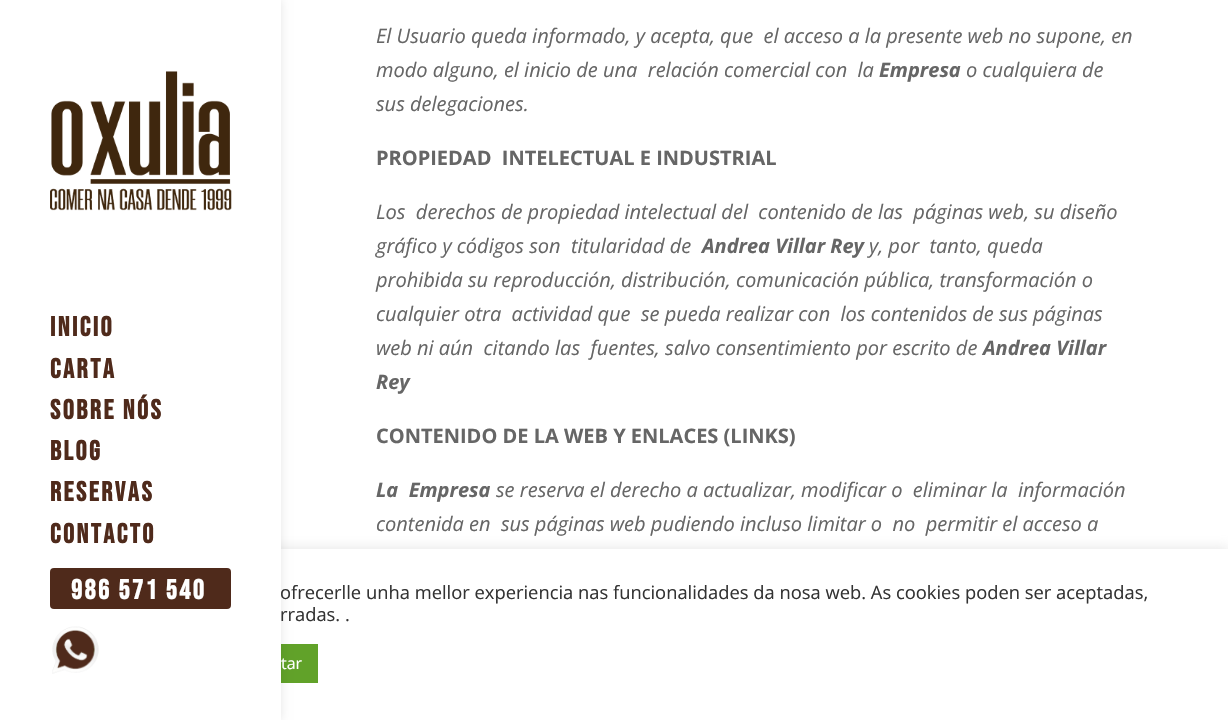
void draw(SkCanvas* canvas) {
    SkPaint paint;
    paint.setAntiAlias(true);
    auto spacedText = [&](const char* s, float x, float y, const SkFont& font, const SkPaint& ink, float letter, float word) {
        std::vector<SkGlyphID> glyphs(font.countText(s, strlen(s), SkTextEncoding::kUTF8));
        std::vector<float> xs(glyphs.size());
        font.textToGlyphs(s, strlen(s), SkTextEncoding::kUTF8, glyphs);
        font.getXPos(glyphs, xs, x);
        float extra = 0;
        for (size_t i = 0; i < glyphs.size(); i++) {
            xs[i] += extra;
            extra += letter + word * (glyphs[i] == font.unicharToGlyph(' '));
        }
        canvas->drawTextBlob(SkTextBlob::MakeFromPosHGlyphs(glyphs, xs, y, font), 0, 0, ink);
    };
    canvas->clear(0xFFFFFFFF);
    paint.setColor(0x4DACABAB);
    paint.setMaskFilter(SkMaskFilter::MakeBlur(kNormal_SkBlurStyle, 6));
    canvas->drawRect(SkRect::MakeXYWH(0, 548, 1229, 171), paint);
    paint.setMaskFilter(nullptr);
    paint.setColor(0xFFFFFFFF);
    canvas->drawRect(SkRect::MakeXYWH(281, 549, 947, 171), paint);
    paint.setColor(0xFF61A229);
    canvas->drawRect(SkRect::MakeXYWH(281, 644, 37, 39), paint);
    paint.setColor(0x1A000000);
    paint.setMaskFilter(SkMaskFilter::MakeBlur(kNormal_SkBlurStyle, 4.5f));
    canvas->drawRect(SkRect::MakeXYWH(0, 0, 281, 720), paint);
    paint.setMaskFilter(nullptr);
    SkFont font1(fontMgr->matchFamilyStyle("Open Sans", SkFontStyle::Normal()), 18.35f);
    font1.setSubpixel(true);
    paint.setColor(0xFF333333);
    canvas->drawString("ofrecerlle unha mellor experiencia nas funcionalidades da nosa web. As cookies poden ser aceptadas,", 280, 599, font1, paint);
    paint.setColor(0xFFFFFFFF);
    canvas->drawRect(SkRect::MakeXYWH(0, 0, 281, 720), paint);
    canvas->drawImageRect(SkImages::DeferredFromEncodedData(SkData::MakeFromFileName("img1.png")), SkRect::MakeXYWH(50, 71, 182, 140), SkSamplingOptions());
    SkFont font2(fontMgr->matchFamilyStyle("Bebas Neue", SkFontStyle::Bold()), 27.5f);
    font2.setSubpixel(true);
    paint.setColor(0xFF4F2A1B);
    spacedText("Inicio", 50, 336, font2, paint, 2.5f, 0);
    spacedText("Carta", 50, 378, font2, paint, 2.5f, 0);
    spacedText("Sobre Nós", 50, 419, font2, paint, 2.5f, 0);
    spacedText("Blog", 50, 460, font2, paint, 2.5f, 0);
    spacedText("Reservas", 50, 501, font2, paint, 2.5f, 0);
    spacedText("Contacto", 50, 543, font2, paint, 2.5f, 0);
    canvas->drawRoundRect(SkRect::MakeXYWH(50, 568, 181, 41), 4, 4, paint);
    paint.setColor(0xFFFFFFFF);
    spacedText("986 571 540", 71, 599, font2, paint, 2.5f, 0);
    canvas->drawImageRect(SkImages::DeferredFromEncodedData(SkData::MakeFromFileName("img2.png")), SkRect::MakeXYWH(52, 626, 47, 48), SkSamplingOptions());
    SkFont font3(fontMgr->matchFamilyStyle("Open Sans", SkFontStyle::Italic()), 20);
    font3.setSubpixel(true);
    paint.setColor(0xFF666666);
    canvas->drawString("El Usuario queda informado, y acepta, que  el acceso a la presente web no supone, en", 376, 43, font3, paint);
    canvas->drawString("modo alguno, el inicio de una  relación comercial con  la", 376, 77, font3, paint);
    SkFont font4(fontMgr->matchFamilyStyle("Open Sans", SkFontStyle::BoldItalic()), 20);
    font4.setSubpixel(true);
    canvas->drawString("Empresa", 879, 77, font4, paint);
    canvas->drawString("o cualquiera de", 966, 77, font3, paint);
    canvas->drawString("sus delegaciones.", 376, 111, font3, paint);
    SkFont font5(fontMgr->matchFamilyStyle("Open Sans", SkFontStyle::Bold()), 20);
    font5.setSubpixel(true);
    canvas->drawString("PROPIEDAD  INTELECTUAL E INDUSTRIAL", 376, 165, font5, paint);
    canvas->drawString("Los  derechos de propiedad intelectual del  contenido de las  páginas web, su diseño", 376, 219, font3, paint);
    canvas->drawString("gráfico y códigos son  titularidad de", 376, 253, font3, paint);
    canvas->drawString("Andrea Villar Rey", 702, 253, font4, paint);
    canvas->drawString("y, por  tanto, queda", 869, 253, font3, paint);
    canvas->drawString("prohibida su reproducción, distribución, comunicación pública, transformación o", 376, 287, font3, paint);
    canvas->drawString("cualquier otra  actividad que  se pueda realizar con  los contenidos de sus páginas", 376, 321, font3, paint);
    canvas->drawString("web ni aún  citando las  fuentes, salvo consentimiento por escrito de", 376, 355, font3, paint);
    canvas->drawString("Andrea Villar", 983, 355, font4, paint);
    canvas->drawString("Rey", 376, 389, font4, paint);
    canvas->drawString("CONTENIDO DE LA WEB Y ENLACES (LINKS)", 376, 443, font5, paint);
    canvas->drawString("La  Empresa", 376, 497, font4, paint);
    canvas->drawString("se reserva el derecho a actualizar, modificar o  eliminar la  información", 496, 497, font3, paint);
    canvas->drawString("contenida en  sus páginas web pudiendo incluso limitar o  no  permitir el acceso a", 376, 531, font3, paint);
    paint.setColor(0xFF333333);
    canvas->drawString("rradas. .", 280, 621, font1, paint);
    SkFont font6(fontMgr->matchFamilyStyle("Open Sans", SkFontStyle::Normal()), 16);
    font6.setSubpixel(true);
    paint.setColor(0xFFFFFFFF);
    canvas->drawString("tar", 281, 669, font6, paint);
}
